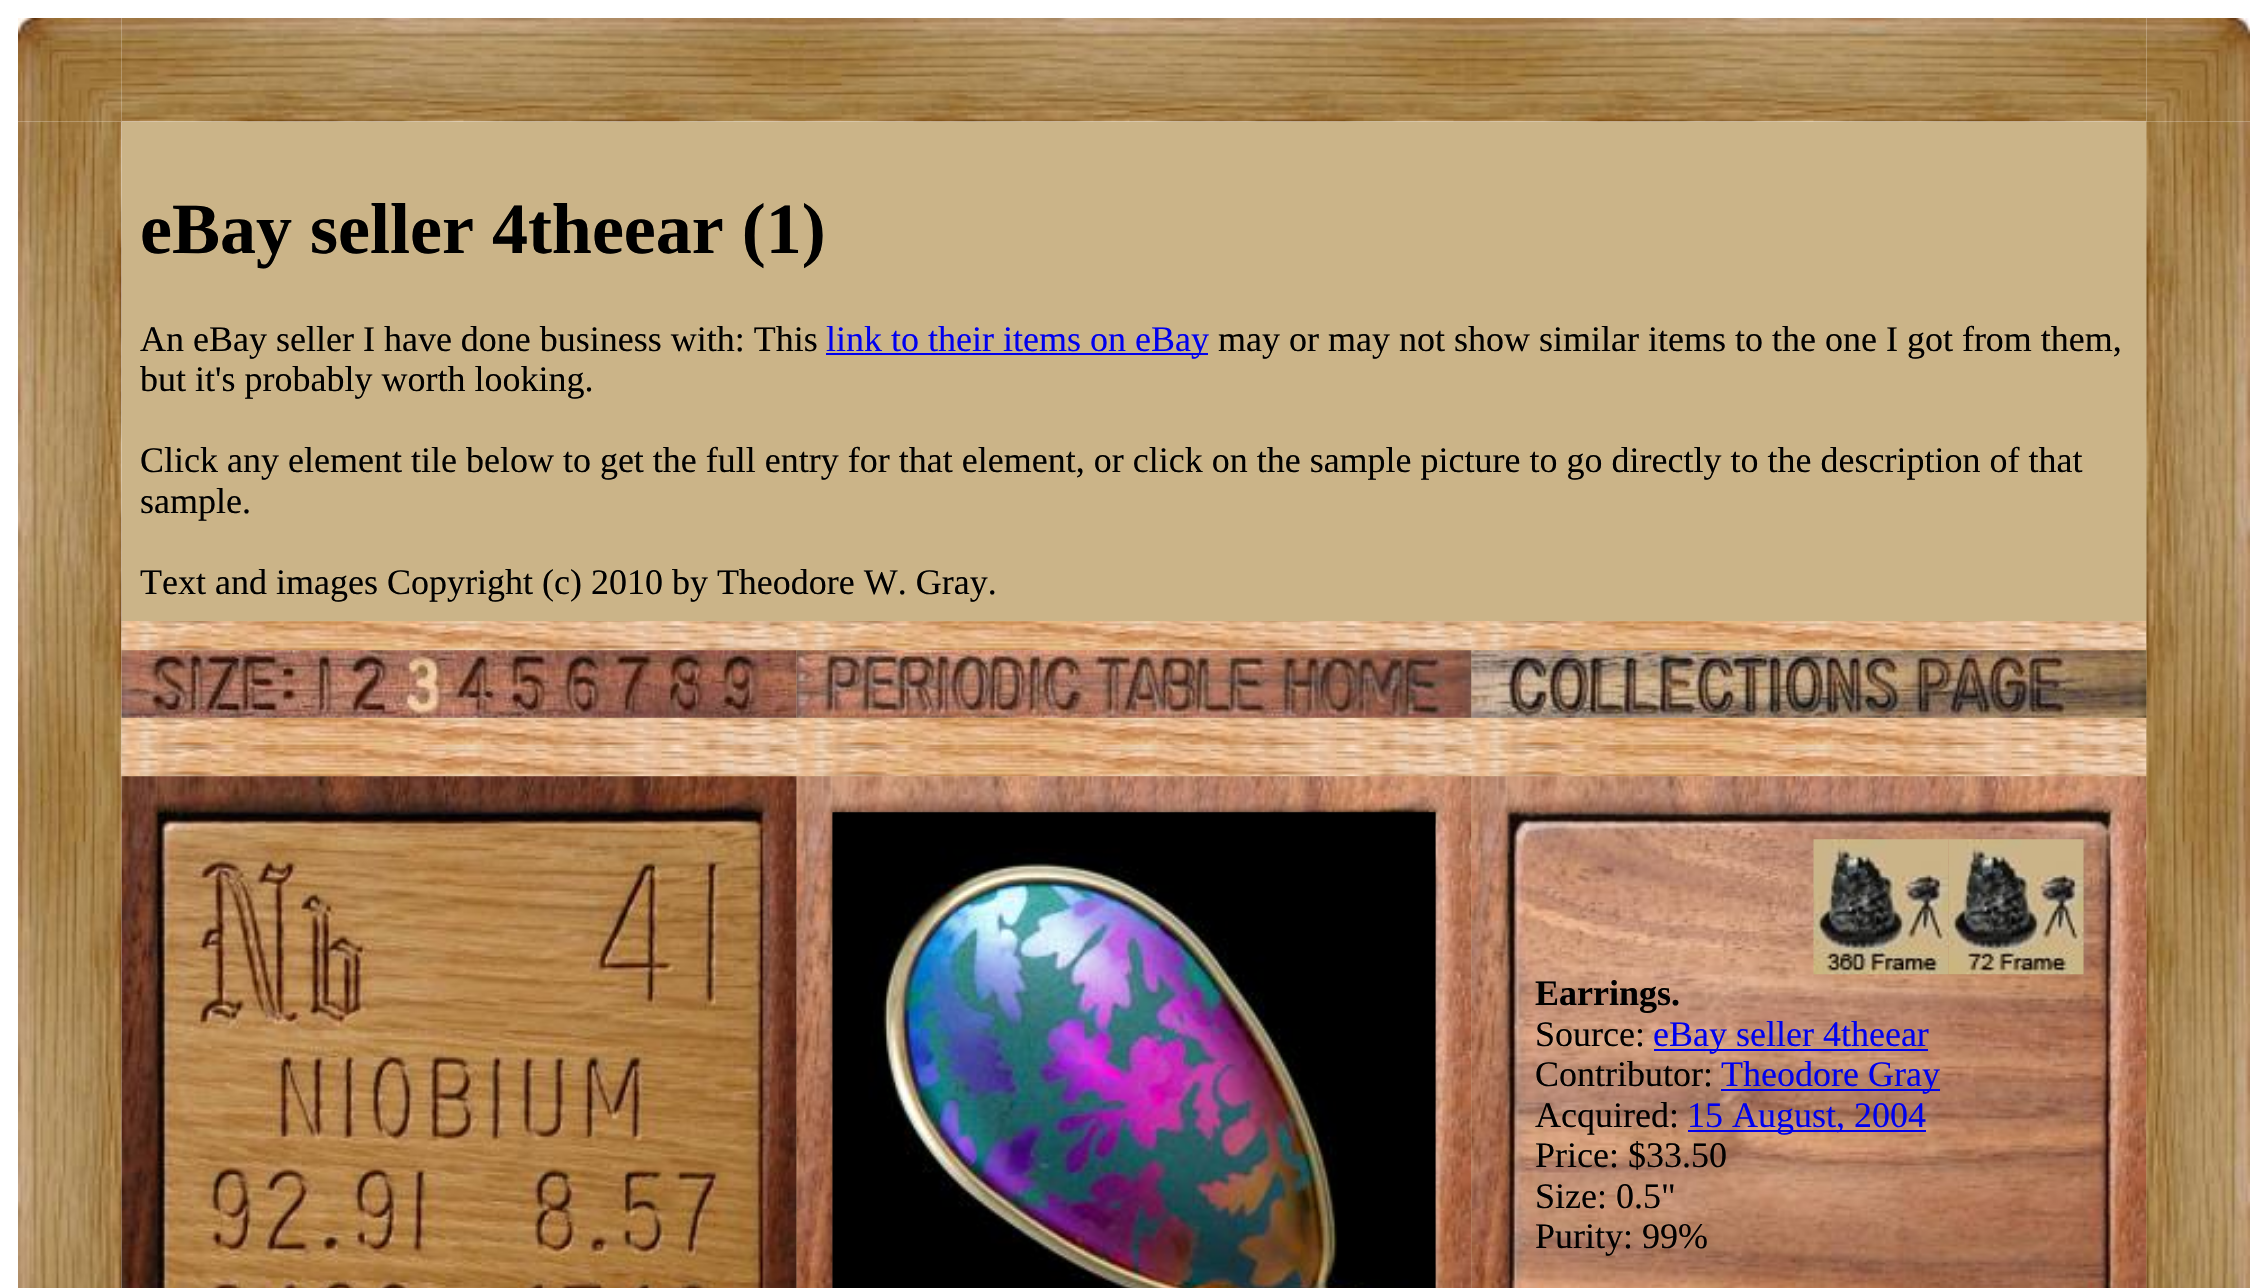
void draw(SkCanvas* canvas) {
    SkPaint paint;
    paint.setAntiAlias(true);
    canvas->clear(0xFFFFFFFF);
    canvas->drawImageRect(SkImages::DeferredFromEncodedData(SkData::MakeFromFileName("img2.png")), SkRect::MakeXYWH(121, 18, 2026, 104), SkSamplingOptions());
    canvas->drawImageRect(SkImages::DeferredFromEncodedData(SkData::MakeFromFileName("img4.png")), SkRect::MakeXYWH(18, 121, 104, 1167), SkSamplingOptions());
    canvas->drawImageRect(SkImages::DeferredFromEncodedData(SkData::MakeFromFileName("img1.png")), SkRect::MakeXYWH(18, 18, 104, 104), SkSamplingOptions());
    paint.setColor(0xFFCBB488);
    canvas->drawRect(SkRect::MakeXYWH(122, 122, 2025, 1166), paint);
    canvas->drawImageRect(SkImages::DeferredFromEncodedData(SkData::MakeFromFileName("img5.png")), SkRect::MakeXYWH(121, 621, 2026, 30), SkSamplingOptions());
    canvas->drawImageRect(SkImages::DeferredFromEncodedData(SkData::MakeFromFileName("img9.png")), SkRect::MakeXYWH(121, 717, 2026, 30), SkSamplingOptions());
    canvas->drawImageRect(SkImages::DeferredFromEncodedData(SkData::MakeFromFileName("img10.png")), SkRect::MakeXYWH(121, 747, 2026, 30), SkSamplingOptions());
    canvas->drawImageRect(SkImages::DeferredFromEncodedData(SkData::MakeFromFileName("img12.png")), SkRect::MakeXYWH(796, 776, 676, 512), SkSamplingOptions());
    canvas->drawImageRect(SkImages::DeferredFromEncodedData(SkData::MakeFromFileName("img14.png")), SkRect::MakeXYWH(1471, 776, 676, 512), SkSamplingOptions());
    canvas->drawImageRect(SkImages::DeferredFromEncodedData(SkData::MakeFromFileName("img17.png")), SkRect::MakeXYWH(2146, 121, 104, 1167), SkSamplingOptions());
    canvas->drawImageRect(SkImages::DeferredFromEncodedData(SkData::MakeFromFileName("img3.png")), SkRect::MakeXYWH(2146, 18, 104, 104), SkSamplingOptions());
    SkFont font1(fontMgr->matchFamilyStyle("Liberation Serif", SkFontStyle::Bold()), 72);
    font1.setSubpixel(true);
    paint.setColor(0xFF000000);
    canvas->drawString("eBay seller 4theear (1)", 140, 253, font1, paint);
    SkFont font2(fontMgr->matchFamilyStyle("Liberation Serif", SkFontStyle::Normal()), 36);
    font2.setSubpixel(true);
    canvas->drawString("An eBay seller I have done business with: This", 140, 351, font2, paint);
    paint.setColor(0xFF0000EE);
    canvas->drawRect(SkRect::MakeXYWH(826, 353, 382, 2), paint);
    canvas->drawString("link to their items on eBay", 826, 351, font2, paint);
    paint.setColor(0xFF000000);
    canvas->drawString("may or may not show similar items to the one I got from them,", 1218, 351, font2, paint);
    canvas->drawString("but it's probably worth looking.", 140, 391, font2, paint);
    canvas->drawString("Click any element tile below to get the full entry for that element, or click on the sample picture to go directly to the description of that", 140, 472, font2, paint);
    canvas->drawString("sample.", 140, 513, font2, paint);
    canvas->drawString("Text and images Copyright (c) 2010 by Theodore W. Gray.", 140, 594, font2, paint);
    canvas->drawImageRect(SkImages::DeferredFromEncodedData(SkData::MakeFromFileName("img6.png")), SkRect::MakeXYWH(121, 650, 676, 68), SkSamplingOptions());
    canvas->drawImageRect(SkImages::DeferredFromEncodedData(SkData::MakeFromFileName("img7.png")), SkRect::MakeXYWH(796, 650, 676, 68), SkSamplingOptions());
    canvas->drawImageRect(SkImages::DeferredFromEncodedData(SkData::MakeFromFileName("img8.png")), SkRect::MakeXYWH(1471, 650, 676, 68), SkSamplingOptions());
    canvas->drawImageRect(SkImages::DeferredFromEncodedData(SkData::MakeFromFileName("img11.png")), SkRect::MakeXYWH(121, 776, 676, 512), SkSamplingOptions());
    canvas->drawImageRect(SkImages::DeferredFromEncodedData(SkData::MakeFromFileName("img13.png")), SkRect::MakeXYWH(832, 812, 604, 476), SkSamplingOptions());
    canvas->drawImageRect(SkImages::DeferredFromEncodedData(SkData::MakeFromFileName("img16.png")), SkRect::MakeXYWH(1948, 839, 136, 136), SkSamplingOptions());
    canvas->drawImageRect(SkImages::DeferredFromEncodedData(SkData::MakeFromFileName("img15.png")), SkRect::MakeXYWH(1813, 839, 136, 136), SkSamplingOptions());
    SkFont font3(fontMgr->matchFamilyStyle("Liberation Serif", SkFontStyle::Bold()), 36);
    font3.setSubpixel(true);
    canvas->drawString("Earrings.", 1535, 1005, font3, paint);
    canvas->drawString("Source:", 1535, 1046, font2, paint);
    paint.setColor(0xFF0000EE);
    canvas->drawRect(SkRect::MakeXYWH(1654, 1049, 274, 2), paint);
    canvas->drawString("eBay seller 4theear", 1653, 1046, font2, paint);
    paint.setColor(0xFF000000);
    canvas->drawString("Contributor:", 1535, 1086, font2, paint);
    paint.setColor(0xFF0000EE);
    canvas->drawRect(SkRect::MakeXYWH(1721, 1089, 219, 2), paint);
    canvas->drawString("Theodore Gray", 1721, 1086, font2, paint);
    paint.setColor(0xFF000000);
    canvas->drawString("Acquired:", 1535, 1127, font2, paint);
    paint.setColor(0xFF0000EE);
    canvas->drawRect(SkRect::MakeXYWH(1688, 1130, 238, 2), paint);
    canvas->drawString("15 August, 2004", 1687, 1127, font2, paint);
    paint.setColor(0xFF000000);
    canvas->drawString("Price: $33.50", 1535, 1167, font2, paint);
    canvas->drawString("Size: 0.5\"", 1535, 1208, font2, paint);
    canvas->drawString("Purity: 99%", 1535, 1248, font2, paint);
}
